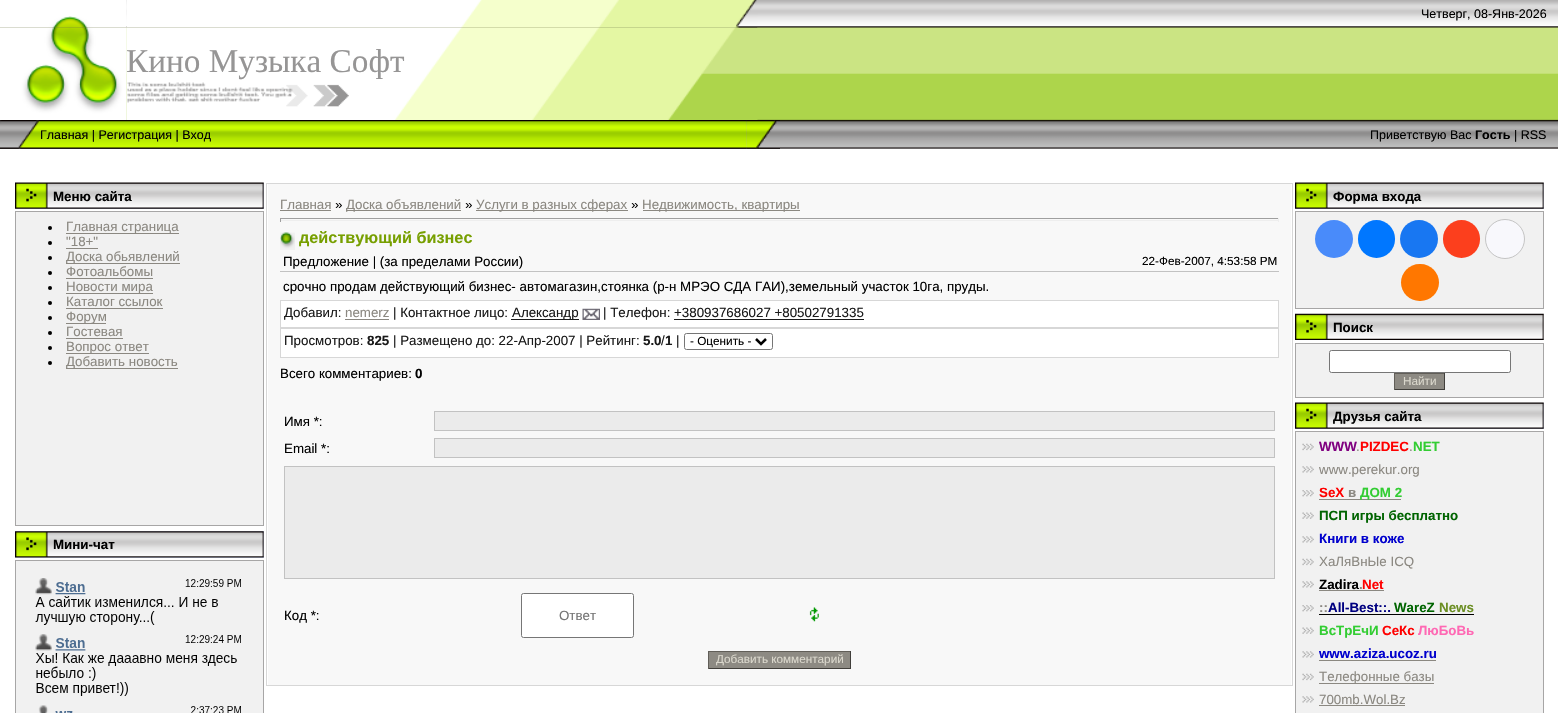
void draw(SkCanvas* canvas) {
    SkPaint paint;
    paint.setAntiAlias(true);
    canvas->clear(0xFFFFFFFF);
    canvas->drawImageRect(SkImages::DeferredFromEncodedData(SkData::MakeFromFileName("img1.png")), SkRect::MakeXYWH(0, 0, 1558, 149), SkSamplingOptions());
    canvas->drawImageRect(SkImages::DeferredFromEncodedData(SkData::MakeFromFileName("img5.png")), SkRect::MakeXYWH(126, 27, 632, 93), SkSamplingOptions());
    canvas->drawImageRect(SkImages::DeferredFromEncodedData(SkData::MakeFromFileName("img2.png")), SkRect::MakeXYWH(0, 0, 127, 28), SkSamplingOptions());
    canvas->drawImageRect(SkImages::DeferredFromEncodedData(SkData::MakeFromFileName("img3.png")), SkRect::MakeXYWH(126, 0, 632, 28), SkSamplingOptions());
    SkFont font1(fontMgr->matchFamilyStyle("Liberation Sans", SkFontStyle::Normal()), 12.5f);
    font1.setSubpixel(true);
    paint.setColor(0xFF000000);
    canvas->drawString("Четверг, 08-Янв-2026", 1421, 18, font1, paint);
    canvas->drawImageRect(SkImages::DeferredFromEncodedData(SkData::MakeFromFileName("img4.png")), SkRect::MakeXYWH(0, 27, 127, 93), SkSamplingOptions());
    SkFont font2(fontMgr->matchFamilyStyle("Liberation Serif", SkFontStyle::Normal()), 33.25f);
    font2.setSubpixel(true);
    paint.setColor(0xFF969595);
    canvas->drawString("Кино Музыка Софт", 126, 72, font2, paint);
    canvas->drawImageRect(SkImages::DeferredFromEncodedData(SkData::MakeFromFileName("img6.png")), SkRect::MakeXYWH(0, 120, 40, 29), SkSamplingOptions());
    canvas->drawImageRect(SkImages::DeferredFromEncodedData(SkData::MakeFromFileName("img7.png")), SkRect::MakeXYWH(40, 120, 707, 29), SkSamplingOptions());
    paint.setColor(0xFF000000);
    canvas->drawString("Главная | Регистрация | Вход", 40, 139, font1, paint);
    canvas->drawImageRect(SkImages::DeferredFromEncodedData(SkData::MakeFromFileName("img8.png")), SkRect::MakeXYWH(746, 120, 34, 29), SkSamplingOptions());
    canvas->drawString("Приветствую Вас", 1370, 139, font1, paint);
    SkFont font3(fontMgr->matchFamilyStyle("Liberation Sans", SkFontStyle::Bold()), 12.5f);
    font3.setSubpixel(true);
    canvas->drawString("Гость", 1475, 139, font3, paint);
    canvas->drawString("| RSS", 1514, 139, font1, paint);
    paint.setColor(0xFFD4DFF7);
    canvas->drawRect(SkRect::MakeXYWH(15, 183, 249, 26), paint);
    canvas->drawImageRect(SkImages::DeferredFromEncodedData(SkData::MakeFromFileName("img9.png")), SkRect::MakeXYWH(15, 182, 249, 27), SkSamplingOptions());
    SkFont font4(fontMgr->matchFamilyStyle("Liberation Sans", SkFontStyle::Bold()), 13.33f);
    font4.setSubpixel(true);
    paint.setColor(0xFF000000);
    canvas->drawString("Меню сайта", 53, 201, font4, paint);
    paint.setColor(0xFFF1F1F1);
    canvas->drawRect(SkRect::MakeXYWH(15.5f, 211.5f, 248, 314), paint);
    paint.setStyle(SkPaint::kStroke_Style);
    paint.setStrokeWidth(1);
    paint.setColor(0xFFA7A6A6);
    canvas->drawRect(SkRect::MakeXYWH(15.5f, 211.5f, 248, 314), paint);
    paint.setStyle(SkPaint::kFill_Style);
    paint.setColor(0xFF000000);
    canvas->drawCircle(50, 228, 2, paint);
    paint.setColor(0xFF8B8881);
    canvas->drawRect(SkRect::MakeXYWH(66, 233, 113, 1), paint);
    SkFont font5(fontMgr->matchFamilyStyle("Liberation Sans", SkFontStyle::Normal()), 13.33f);
    font5.setSubpixel(true);
    canvas->drawString("Главная страница", 66, 231, font5, paint);
    paint.setColor(0xFF000000);
    canvas->drawCircle(50, 243, 2, paint);
    paint.setColor(0xFF8B8881);
    canvas->drawString("\"18+\"", 66, 246, font5, paint);
    canvas->drawRect(SkRect::MakeXYWH(66, 248, 32, 1), paint);
    paint.setColor(0xFF000000);
    canvas->drawCircle(50, 258, 2, paint);
    paint.setColor(0xFF8B8881);
    canvas->drawRect(SkRect::MakeXYWH(66, 263, 114, 1), paint);
    canvas->drawString("Доска обьявлений", 66, 261, font5, paint);
    paint.setColor(0xFF000000);
    canvas->drawCircle(50, 273, 2, paint);
    paint.setColor(0xFF8B8881);
    canvas->drawString("Фотоальбомы", 66, 276, font5, paint);
    canvas->drawRect(SkRect::MakeXYWH(66, 278, 87, 1), paint);
    paint.setColor(0xFF000000);
    canvas->drawCircle(50, 288, 2, paint);
    paint.setColor(0xFF8B8881);
    canvas->drawRect(SkRect::MakeXYWH(66, 293, 87, 1), paint);
    canvas->drawString("Новости мира", 66, 291, font5, paint);
    paint.setColor(0xFF000000);
    canvas->drawCircle(50, 303, 2, paint);
    paint.setColor(0xFF8B8881);
    canvas->drawString("Каталог ссылок", 66, 306, font5, paint);
    canvas->drawRect(SkRect::MakeXYWH(66, 308, 97, 1), paint);
    paint.setColor(0xFF000000);
    canvas->drawCircle(50, 318, 2, paint);
    paint.setColor(0xFF8B8881);
    canvas->drawRect(SkRect::MakeXYWH(66, 323, 40, 1), paint);
    canvas->drawString("Форум", 66, 321, font5, paint);
    paint.setColor(0xFF000000);
    canvas->drawCircle(50, 333, 2, paint);
    paint.setColor(0xFF8B8881);
    canvas->drawString("Гостевая", 66, 336, font5, paint);
    canvas->drawRect(SkRect::MakeXYWH(66, 338, 57, 1), paint);
    paint.setColor(0xFF000000);
    canvas->drawCircle(50, 348, 2, paint);
    paint.setColor(0xFF8B8881);
    canvas->drawRect(SkRect::MakeXYWH(66, 353, 83, 1), paint);
    canvas->drawString("Вопрос ответ", 66, 351, font5, paint);
    paint.setColor(0xFF000000);
    canvas->drawCircle(50, 363, 2, paint);
    paint.setColor(0xFF8B8881);
    canvas->drawRect(SkRect::MakeXYWH(66, 368, 112, 1), paint);
    canvas->drawString("Добавить новость", 66, 366, font5, paint);
    paint.setColor(0xFFD4DFF7);
    canvas->drawRect(SkRect::MakeXYWH(15, 531, 249, 27), paint);
    canvas->drawImageRect(SkImages::DeferredFromEncodedData(SkData::MakeFromFileName("img10.png")), SkRect::MakeXYWH(15, 531, 249, 27), SkSamplingOptions());
    paint.setColor(0xFF000000);
    canvas->drawString("Мини-чат", 53, 549, font4, paint);
    paint.setColor(0xFFF1F1F1);
    canvas->drawRect(SkRect::MakeXYWH(15.5f, 560.5f, 248, 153), paint);
    paint.setStyle(SkPaint::kStroke_Style);
    paint.setColor(0xFFA7A6A6);
    canvas->drawRect(SkRect::MakeXYWH(15.5f, 560.5f, 248, 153), paint);
    canvas->drawImageRect(SkImages::DeferredFromEncodedData(SkData::MakeFromFileName("img11.png")), SkRect::MakeXYWH(35, 578, 206, 135), SkSamplingOptions());
    paint.setColor(0xFFD7D7D7);
    canvas->drawRect(SkRect::MakeXYWH(266.5f, 183.5f, 1026, 502), paint);
    paint.setStyle(SkPaint::kFill_Style);
    paint.setColor(0xFFF8F8F8);
    canvas->drawRect(SkRect::MakeXYWH(268, 184, 1023, 501), paint);
    paint.setColor(0xFF8B8881);
    canvas->drawString("Главная", 280, 209, font5, paint);
    canvas->drawRect(SkRect::MakeXYWH(280, 210, 51, 1), paint);
    paint.setColor(0xFF000000);
    canvas->drawString("»", 335, 209, font5, paint);
    paint.setColor(0xFF8B8881);
    canvas->drawRect(SkRect::MakeXYWH(346, 210, 115, 1), paint);
    canvas->drawString("Доска объявлений", 346, 209, font5, paint);
    paint.setColor(0xFF000000);
    canvas->drawString("»", 465, 209, font5, paint);
    paint.setColor(0xFF8B8881);
    canvas->drawRect(SkRect::MakeXYWH(476, 210, 152, 1), paint);
    canvas->drawString("Услуги в разных сферах", 476, 209, font5, paint);
    paint.setColor(0xFF000000);
    canvas->drawString("»", 631, 209, font5, paint);
    paint.setColor(0xFF8B8881);
    canvas->drawRect(SkRect::MakeXYWH(643, 210, 157, 1), paint);
    canvas->drawString("Недвижимость, квартиры", 642, 209, font5, paint);
    paint.setColor(0xFF9F9F9F);
    canvas->drawRect(SkRect::MakeXYWH(280, 218, 999, 1), paint);
    paint.setColor(0xFFEEEEEE);
    canvas->drawRect(SkRect::MakeXYWH(1278, 218, 1, 4), paint);
    canvas->drawRect(SkRect::MakeXYWH(280, 220, 999, 1), paint);
    paint.setColor(0xFF9F9F9F);
    canvas->drawRect(SkRect::MakeXYWH(280, 218, 1, 4), paint);
    canvas->drawImageRect(SkImages::DeferredFromEncodedData(SkData::MakeFromFileName("img12.png")), SkRect::MakeXYWH(280, 232, 15, 18), SkSamplingOptions());
    SkFont font6(fontMgr->matchFamilyStyle("Liberation Sans", SkFontStyle::Bold()), 16.25f);
    font6.setSubpixel(true);
    paint.setColor(0xFF779F00);
    canvas->drawString("действующий бизнес", 299, 243, font6, paint);
    paint.setColor(0xFF000000);
    canvas->drawString("Предложение | (за пределами России)", 283, 266, font5, paint);
    SkFont font7(fontMgr->matchFamilyStyle("Liberation Sans", SkFontStyle::Normal()), 11.75f);
    font7.setSubpixel(true);
    canvas->drawString("22-Фев-2007, 4:53:58 PM", 1142, 265, font7, paint);
    paint.setColor(0xFFC2C2C2);
    canvas->drawRect(SkRect::MakeXYWH(280, 271, 999, 1), paint);
    paint.setColor(0xFF000000);
    canvas->drawString("срочно продам действующий бизнес- автомагазин,стоянка (р-н МРЭО СДА ГАИ),земельный участок 10га, пруды.", 283, 291, font5, paint);
    paint.setColor(0xFFFFFFFF);
    canvas->drawRect(SkRect::MakeXYWH(280.5f, 300.5f, 998, 27), paint);
    paint.setStyle(SkPaint::kStroke_Style);
    paint.setColor(0xFFD7D7D7);
    canvas->drawRect(SkRect::MakeXYWH(280.5f, 300.5f, 998, 27), paint);
    paint.setStyle(SkPaint::kFill_Style);
    paint.setColor(0xFF1A1A1A);
    canvas->drawString("Добавил:", 284, 317, font5, paint);
    paint.setColor(0xFF8B8881);
    canvas->drawString("nemerz", 345, 317, font5, paint);
    canvas->drawRect(SkRect::MakeXYWH(345, 319, 44, 1), paint);
    paint.setColor(0xFF1A1A1A);
    canvas->drawString("| Контактное лицо:", 393, 317, font5, paint);
    canvas->drawRect(SkRect::MakeXYWH(511, 319, 68, 1), paint);
    canvas->drawString("Александр", 512, 317, font5, paint);
    canvas->drawImageRect(SkImages::DeferredFromEncodedData(SkData::MakeFromFileName("img13.png")), SkRect::MakeXYWH(582, 308, 18, 12), SkSamplingOptions());
    canvas->drawString("| Телефон: +380937686027 +80502791335", 603, 317, font5, paint);
    canvas->drawRect(SkRect::MakeXYWH(674, 319, 190, 1), paint);
    paint.setColor(0xFFFFFFFF);
    canvas->drawRect(SkRect::MakeXYWH(280.5f, 328.5f, 998, 29), paint);
    paint.setStyle(SkPaint::kStroke_Style);
    paint.setColor(0xFFD7D7D7);
    canvas->drawRect(SkRect::MakeXYWH(280.5f, 328.5f, 998, 29), paint);
    paint.setStyle(SkPaint::kFill_Style);
    paint.setColor(0xFF1A1A1A);
    canvas->drawString("Просмотров:", 284, 345, font5, paint);
    canvas->drawString("825", 367, 345, font4, paint);
    canvas->drawString("| Размещено до: 22-Апр-2007 | Рейтинг:", 393, 345, font5, paint);
    canvas->drawString("5.0", 643, 345, font4, paint);
    canvas->drawString("/", 661, 345, font5, paint);
    canvas->drawString("1", 665, 345, font4, paint);
    canvas->drawString("|", 676, 345, font5, paint);
    paint.setStyle(SkPaint::kStroke_Style);
    paint.setColor(0xFF767676);
    canvas->drawRoundRect(SkRect::MakeXYWH(684.5f, 333.5f, 88, 16), 2, 2, paint);
    paint.setStrokeWidth(2.5f);
    paint.setColor(0xFF000000);
    canvas->drawPath(SkPathBuilder().moveTo(756, 339).lineTo(761, 344).lineTo(766, 339).detach(), paint);
    paint.setStyle(SkPaint::kFill_Style);
    canvas->drawString("- Оценить -", 690, 345, font7, paint);
    canvas->drawString("Всего комментариев:", 280, 378, font5, paint);
    canvas->drawString("0", 415, 378, font4, paint);
    canvas->drawString("Имя *:", 284, 426, font5, paint);
    paint.setColor(0xFFEBEBEB);
    canvas->drawRect(SkRect::MakeXYWH(434.5f, 411.5f, 840, 19), paint);
    paint.setStyle(SkPaint::kStroke_Style);
    paint.setStrokeWidth(1);
    paint.setColor(0xFFC2C2C2);
    canvas->drawRect(SkRect::MakeXYWH(434.5f, 411.5f, 840, 19), paint);
    paint.setStyle(SkPaint::kFill_Style);
    paint.setColor(0xFF000000);
    canvas->drawString("Email *:", 284, 453, font5, paint);
    paint.setColor(0xFFEBEBEB);
    canvas->drawRect(SkRect::MakeXYWH(434.5f, 438.5f, 840, 19), paint);
    paint.setStyle(SkPaint::kStroke_Style);
    paint.setColor(0xFFC2C2C2);
    canvas->drawRect(SkRect::MakeXYWH(434.5f, 438.5f, 840, 19), paint);
    paint.setStyle(SkPaint::kFill_Style);
    paint.setColor(0xFFEBEBEB);
    canvas->drawRect(SkRect::MakeXYWH(284.5f, 466.5f, 990, 112), paint);
    paint.setStyle(SkPaint::kStroke_Style);
    paint.setColor(0xFFC2C2C2);
    canvas->drawRect(SkRect::MakeXYWH(284.5f, 466.5f, 990, 112), paint);
    paint.setStyle(SkPaint::kFill_Style);
    paint.setColor(0xFF000000);
    canvas->drawString("Код *:", 284, 620, font5, paint);
    paint.setColor(0xFFFFFFFF);
    canvas->drawRoundRect(SkRect::MakeXYWH(521.5f, 593.5f, 112, 44), 2, 2, paint);
    paint.setStyle(SkPaint::kStroke_Style);
    paint.setColor(0xFF767676);
    canvas->drawRoundRect(SkRect::MakeXYWH(521.5f, 593.5f, 112, 44), 2, 2, paint);
    paint.setStyle(SkPaint::kFill_Style);
    paint.setColor(0xFF757575);
    canvas->drawString("Ответ", 559, 620, font5, paint);
    canvas->drawImageRect(SkImages::DeferredFromEncodedData(SkData::MakeFromFileName("img14.png")), SkRect::MakeXYWH(809, 607, 10, 15), SkSamplingOptions());
    paint.setColor(0xFF8D8A83);
    canvas->drawRect(SkRect::MakeXYWH(709, 652, 141, 16), paint);
    paint.setColor(0xFF615E58);
    canvas->drawRect(SkRect::MakeXYWH(708, 651, 143, 1), paint);
    paint.setColor(0xFF413F3B);
    canvas->drawRect(SkRect::MakeXYWH(850, 651, 1, 18), paint);
    canvas->drawRect(SkRect::MakeXYWH(708, 668, 143, 1), paint);
    paint.setColor(0xFF615E58);
    canvas->drawRect(SkRect::MakeXYWH(708, 651, 1, 18), paint);
    paint.setColor(0xFFDAD7CC);
    canvas->drawString("Добавить комментарий", 716, 663, font7, paint);
    paint.setColor(0xFFD4DFF7);
    canvas->drawRect(SkRect::MakeXYWH(1295, 183, 249, 26), paint);
    canvas->drawImageRect(SkImages::DeferredFromEncodedData(SkData::MakeFromFileName("img15.png")), SkRect::MakeXYWH(1295, 182, 249, 27), SkSamplingOptions());
    paint.setColor(0xFF000000);
    canvas->drawString("Форма входа", 1333, 201, font4, paint);
    paint.setColor(0xFFF1F1F1);
    canvas->drawRect(SkRect::MakeXYWH(1295.5f, 211.5f, 248, 97), paint);
    paint.setStyle(SkPaint::kStroke_Style);
    paint.setColor(0xFFA7A6A6);
    canvas->drawRect(SkRect::MakeXYWH(1295.5f, 211.5f, 248, 97), paint);
    paint.setStyle(SkPaint::kFill_Style);
    paint.setColor(0xFF498BFA);
    canvas->drawCircle(1334, 239, 19, paint);
    paint.setColor(0xFF0077FF);
    canvas->drawRoundRect(SkRect::MakeXYWH(1358, 220, 37, 38), 18.5f, 18.5f, paint);
    paint.setColor(0xFF1877F2);
    canvas->drawCircle(1419, 239, 19, paint);
    paint.setColor(0xFFFC3F1D);
    canvas->drawRoundRect(SkRect::MakeXYWH(1443, 220, 37, 38), 18.5f, 18.5f, paint);
    paint.setColor(0xFFF8F8FC);
    canvas->drawCircle(1505, 239, 19.5f, paint);
    paint.setStyle(SkPaint::kStroke_Style);
    paint.setColor(0xFFC4C4C4);
    canvas->drawCircle(1505, 239, 19.5f, paint);
    paint.setStyle(SkPaint::kFill_Style);
    paint.setColor(0xFFFF7700);
    canvas->drawRoundRect(SkRect::MakeXYWH(1401, 264, 38, 37), 18.5f, 18.5f, paint);
    canvas->drawImageRect(SkImages::DeferredFromEncodedData(SkData::MakeFromFileName("img16.png")), SkRect::MakeXYWH(1295, 313, 249, 27), SkSamplingOptions());
    paint.setColor(0xFF000000);
    canvas->drawString("Поиск", 1333, 332, font4, paint);
    paint.setColor(0xFFF1F1F1);
    canvas->drawRect(SkRect::MakeXYWH(1295.5f, 343.5f, 248, 54), paint);
    paint.setStyle(SkPaint::kStroke_Style);
    paint.setColor(0xFFA7A6A6);
    canvas->drawRect(SkRect::MakeXYWH(1295.5f, 343.5f, 248, 54), paint);
    paint.setStyle(SkPaint::kFill_Style);
    paint.setColor(0xFFFFFFFF);
    canvas->drawRoundRect(SkRect::MakeXYWH(1329.5f, 350.5f, 181, 22), 2, 2, paint);
    paint.setStyle(SkPaint::kStroke_Style);
    paint.setColor(0xFF767676);
    canvas->drawRoundRect(SkRect::MakeXYWH(1329.5f, 350.5f, 181, 22), 2, 2, paint);
    paint.setStyle(SkPaint::kFill_Style);
    paint.setColor(0xFF8D8A83);
    canvas->drawRect(SkRect::MakeXYWH(1395, 374, 49, 15), paint);
    paint.setColor(0xFF615E58);
    canvas->drawRect(SkRect::MakeXYWH(1394, 373, 51, 1), paint);
    paint.setColor(0xFF413F3B);
    canvas->drawRect(SkRect::MakeXYWH(1444, 373, 1, 17), paint);
    canvas->drawRect(SkRect::MakeXYWH(1394, 389, 51, 1), paint);
    paint.setColor(0xFF615E58);
    canvas->drawRect(SkRect::MakeXYWH(1394, 373, 1, 17), paint);
    paint.setColor(0xFFDAD7CC);
    canvas->drawString("Найти", 1403, 385, font7, paint);
    paint.setColor(0xFFD4DFF7);
    canvas->drawRect(SkRect::MakeXYWH(1295, 403, 249, 26), paint);
    canvas->drawImageRect(SkImages::DeferredFromEncodedData(SkData::MakeFromFileName("img15.png")), SkRect::MakeXYWH(1295, 402, 249, 27), SkSamplingOptions());
    paint.setColor(0xFF000000);
    canvas->drawString("Друзья сайта", 1333, 421, font4, paint);
    paint.setColor(0xFFF1F1F1);
    canvas->drawRect(SkRect::MakeXYWH(1295.5f, 431.5f, 248, 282), paint);
    paint.setStyle(SkPaint::kStroke_Style);
    paint.setColor(0xFFA7A6A6);
    canvas->drawRect(SkRect::MakeXYWH(1295.5f, 431.5f, 248, 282), paint);
    canvas->drawImageRect(SkImages::DeferredFromEncodedData(SkData::MakeFromFileName("img17.png")), SkRect::MakeXYWH(1302, 443, 12, 8), SkSamplingOptions());
    paint.setStyle(SkPaint::kFill_Style);
    paint.setColor(0xFF800080);
    canvas->drawString("WWW", 1319, 451, font4, paint);
    paint.setColor(0xFF8B8881);
    canvas->drawString(".", 1356, 451, font5, paint);
    paint.setColor(0xFFFF0000);
    canvas->drawString("PIZDEC", 1360, 451, font4, paint);
    paint.setColor(0xFF8B8881);
    canvas->drawString(".", 1409, 451, font5, paint);
    paint.setColor(0xFF32CD32);
    canvas->drawString("NET", 1413, 451, font4, paint);
    canvas->drawImageRect(SkImages::DeferredFromEncodedData(SkData::MakeFromFileName("img18.png")), SkRect::MakeXYWH(1302, 466, 12, 7), SkSamplingOptions());
    paint.setColor(0xFF8B8881);
    canvas->drawString("www.perekur.org", 1319, 474, font5, paint);
    canvas->drawImageRect(SkImages::DeferredFromEncodedData(SkData::MakeFromFileName("img19.png")), SkRect::MakeXYWH(1302, 490, 12, 7), SkSamplingOptions());
    paint.setColor(0xFFFF0000);
    canvas->drawString("SeX", 1319, 497, font4, paint);
    paint.setColor(0xFF8B8881);
    canvas->drawString("в", 1348, 497, font4, paint);
    canvas->drawRect(SkRect::MakeXYWH(1319, 499, 82, 1), paint);
    paint.setColor(0xFF32CD32);
    canvas->drawString("ДОМ 2", 1360, 497, font4, paint);
    canvas->drawImageRect(SkImages::DeferredFromEncodedData(SkData::MakeFromFileName("img20.png")), SkRect::MakeXYWH(1302, 512, 12, 7), SkSamplingOptions());
    paint.setColor(0xFF006400);
    canvas->drawString("ПСП игры бесплатно", 1319, 520, font4, paint);
    canvas->drawImageRect(SkImages::DeferredFromEncodedData(SkData::MakeFromFileName("img18.png")), SkRect::MakeXYWH(1302, 536, 12, 7), SkSamplingOptions());
    paint.setColor(0xFF0000CD);
    canvas->drawString("Книги в коже", 1319, 543, font4, paint);
    canvas->drawImageRect(SkImages::DeferredFromEncodedData(SkData::MakeFromFileName("img17.png")), SkRect::MakeXYWH(1302, 558, 12, 8), SkSamplingOptions());
    paint.setColor(0xFF8B8881);
    canvas->drawString("ХаЛяВнЫе ICQ", 1319, 566, font5, paint);
    canvas->drawImageRect(SkImages::DeferredFromEncodedData(SkData::MakeFromFileName("img18.png")), SkRect::MakeXYWH(1302, 581, 12, 7), SkSamplingOptions());
    paint.setColor(0xFF000000);
    canvas->drawString("Zadira", 1319, 589, font4, paint);
    paint.setColor(0xFF8B8881);
    canvas->drawString(".", 1359, 589, font4, paint);
    canvas->drawRect(SkRect::MakeXYWH(1319, 590, 65, 1), paint);
    paint.setColor(0xFFFF0000);
    canvas->drawString("Net", 1362, 589, font4, paint);
    canvas->drawImageRect(SkImages::DeferredFromEncodedData(SkData::MakeFromFileName("img19.png")), SkRect::MakeXYWH(1302, 605, 12, 7), SkSamplingOptions());
    paint.setColor(0xFF8B8881);
    canvas->drawString("::", 1319, 612, font4, paint);
    paint.setColor(0xFF000000);
    canvas->drawRect(SkRect::MakeXYWH(1319, 614, 155, 1), paint);
    paint.setColor(0xFF000080);
    canvas->drawString("All-Best::.", 1328, 612, font4, paint);
    paint.setColor(0xFF006400);
    canvas->drawString("WareZ", 1394, 612, font4, paint);
    paint.setColor(0xFF6B8E23);
    canvas->drawString("News", 1439, 612, font4, paint);
    canvas->drawImageRect(SkImages::DeferredFromEncodedData(SkData::MakeFromFileName("img20.png")), SkRect::MakeXYWH(1302, 627, 12, 7), SkSamplingOptions());
    paint.setColor(0xFF32CD32);
    canvas->drawString("ВсТрЕчИ", 1319, 635, font4, paint);
    paint.setColor(0xFFFF0000);
    canvas->drawString("СеКс", 1382, 635, font4, paint);
    paint.setColor(0xFFFF69B4);
    canvas->drawString("ЛюБоВь", 1418, 635, font4, paint);
    canvas->drawImageRect(SkImages::DeferredFromEncodedData(SkData::MakeFromFileName("img18.png")), SkRect::MakeXYWH(1302, 651, 12, 7), SkSamplingOptions());
    paint.setColor(0xFF0000CD);
    canvas->drawString("www.aziza.ucoz.ru", 1319, 658, font4, paint);
    paint.setColor(0xFF8B8881);
    canvas->drawRect(SkRect::MakeXYWH(1319, 660, 117, 1), paint);
    canvas->drawImageRect(SkImages::DeferredFromEncodedData(SkData::MakeFromFileName("img17.png")), SkRect::MakeXYWH(1302, 673, 12, 8), SkSamplingOptions());
    canvas->drawRect(SkRect::MakeXYWH(1319, 683, 115, 1), paint);
    canvas->drawString("Телефонные базы", 1319, 681, font5, paint);
    canvas->drawImageRect(SkImages::DeferredFromEncodedData(SkData::MakeFromFileName("img18.png")), SkRect::MakeXYWH(1302, 696, 12, 7), SkSamplingOptions());
    canvas->drawString("700mb.Wol.Bz", 1319, 704, font5, paint);
    canvas->drawRect(SkRect::MakeXYWH(1319, 705, 86, 1), paint);
}
